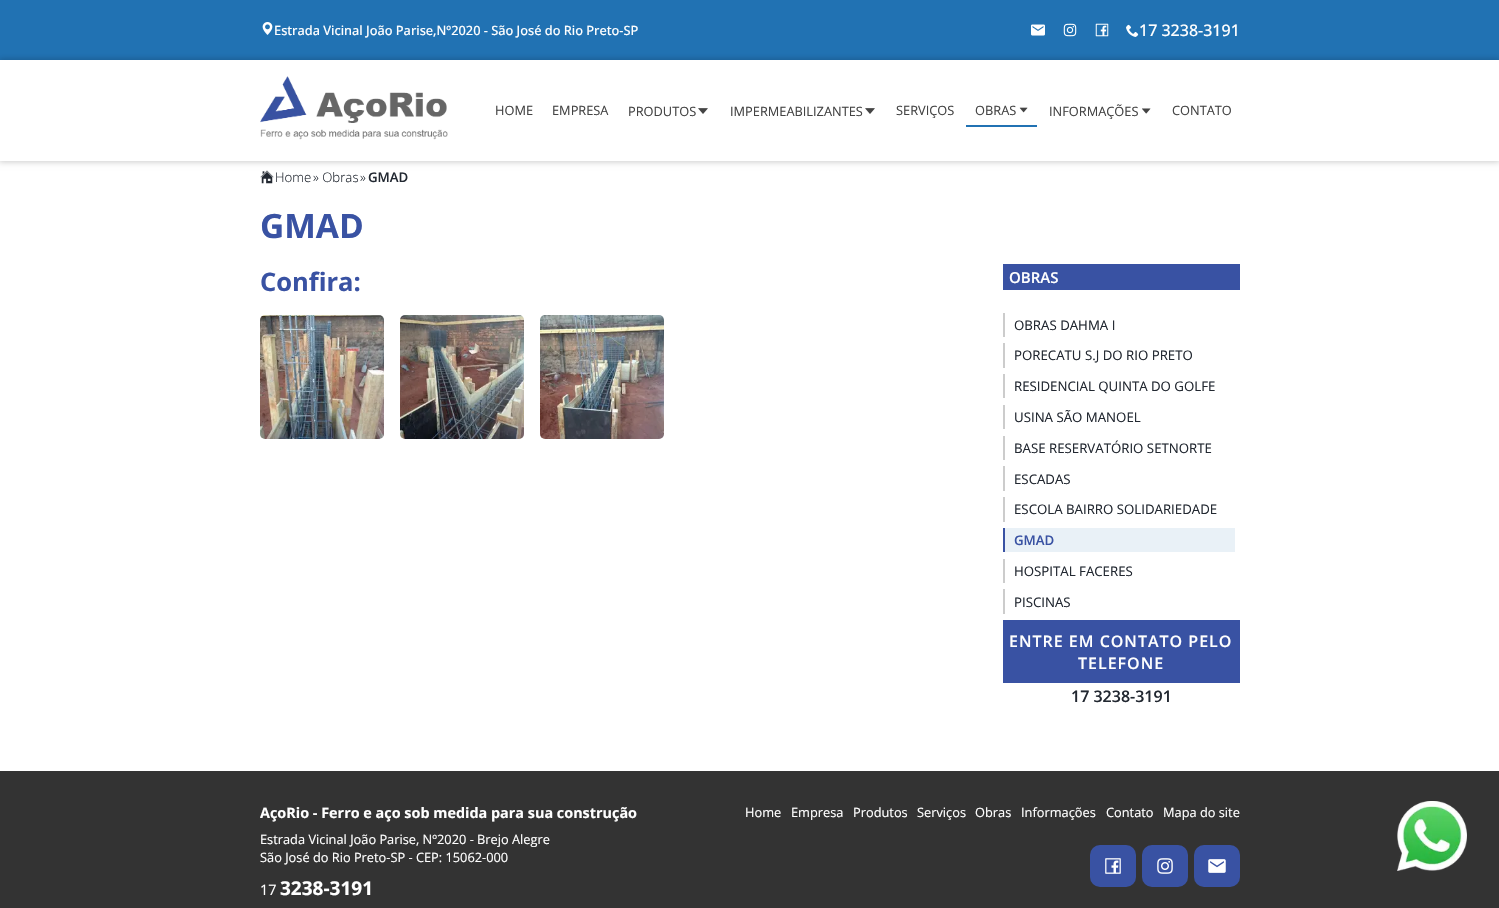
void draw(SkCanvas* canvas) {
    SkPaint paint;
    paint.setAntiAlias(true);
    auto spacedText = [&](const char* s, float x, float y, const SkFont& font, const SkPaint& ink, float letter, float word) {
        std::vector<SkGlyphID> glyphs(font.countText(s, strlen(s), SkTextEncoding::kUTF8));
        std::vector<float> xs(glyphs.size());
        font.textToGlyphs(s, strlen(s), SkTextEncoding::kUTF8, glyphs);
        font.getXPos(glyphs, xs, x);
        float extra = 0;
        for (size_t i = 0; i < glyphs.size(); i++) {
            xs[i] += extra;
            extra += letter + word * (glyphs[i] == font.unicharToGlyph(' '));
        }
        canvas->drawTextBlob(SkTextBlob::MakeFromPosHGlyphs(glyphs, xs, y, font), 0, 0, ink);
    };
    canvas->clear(0xFFFFFFFF);
    paint.setColor(0xFF2172B3);
    canvas->drawRect(SkRect::MakeXYWH(0, 0, 1499, 60), paint);
    canvas->drawImageRect(SkImages::DeferredFromEncodedData(SkData::MakeFromFileName("img1.png")), SkRect::MakeXYWH(262, 22, 11, 13), SkSamplingOptions());
    SkFont font1(fontMgr->matchFamilyStyle("Open Sans", SkFontStyle(500, SkFontStyle::kNormal_Width, SkFontStyle::kUpright_Slant)), 12.8f);
    font1.setSubpixel(true);
    paint.setColor(0xFFFFFFFF);
    canvas->drawString("Estrada Vicinal João Parise,Nº2020 - São José do Rio Preto-SP", 274, 35, font1, paint);
    canvas->drawImageRect(SkImages::DeferredFromEncodedData(SkData::MakeFromFileName("img2.png")), SkRect::MakeXYWH(1031, 24, 14, 12), SkSamplingOptions());
    canvas->drawImageRect(SkImages::DeferredFromEncodedData(SkData::MakeFromFileName("img3.png")), SkRect::MakeXYWH(1063, 23, 14, 14), SkSamplingOptions());
    canvas->drawImageRect(SkImages::DeferredFromEncodedData(SkData::MakeFromFileName("img4.png")), SkRect::MakeXYWH(1095, 23, 14, 14), SkSamplingOptions());
    canvas->drawImageRect(SkImages::DeferredFromEncodedData(SkData::MakeFromFileName("img5.png")), SkRect::MakeXYWH(1126, 24, 13, 13), SkSamplingOptions());
    SkFont font2(fontMgr->matchFamilyStyle("Open Sans", SkFontStyle(500, SkFontStyle::kNormal_Width, SkFontStyle::kUpright_Slant)), 16);
    font2.setSubpixel(true);
    canvas->drawString("17 3238-3191", 1139, 36, font2, paint);
    canvas->save();
    canvas->clipPath(SkPathBuilder(SkPathFillType::kEvenOdd).moveTo(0, 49).lineTo(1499, 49).lineTo(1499, 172).lineTo(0, 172).close().moveTo(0, 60).lineTo(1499, 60).lineTo(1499, 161).lineTo(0, 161).close().detach(), true);
    paint.setColor(0x33000000);
    paint.setMaskFilter(SkMaskFilter::MakeBlur(kNormal_SkBlurStyle, 3));
    canvas->drawRect(SkRect::MakeXYWH(-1, 59, 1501, 103), paint);
    paint.setMaskFilter(nullptr);
    canvas->restore();
    canvas->drawImageRect(SkImages::DeferredFromEncodedData(SkData::MakeFromFileName("img6.png")), SkRect::MakeXYWH(260, 76, 188, 64), SkSamplingOptions());
    SkFont font3(fontMgr->matchFamilyStyle("Open Sans", SkFontStyle::Normal()), 12.8f);
    font3.setSubpixel(true);
    paint.setColor(0xFF444444);
    canvas->drawString("HOME", 495, 115, font3, paint);
    canvas->drawString("EMPRESA", 552, 115, font3, paint);
    canvas->drawString("PRODUTOS", 628, 116, font3, paint);
    canvas->drawImageRect(SkImages::DeferredFromEncodedData(SkData::MakeFromFileName("img7.png")), SkRect::MakeXYWH(698, 108, 10, 6), SkSamplingOptions());
    canvas->drawString("IMPERMEABILIZANTES", 730, 116, font3, paint);
    canvas->drawImageRect(SkImages::DeferredFromEncodedData(SkData::MakeFromFileName("img7.png")), SkRect::MakeXYWH(865, 108, 10, 6), SkSamplingOptions());
    canvas->drawString("SERVIÇOS", 896, 115, font3, paint);
    paint.setColor(0xFF2172B3);
    canvas->drawRect(SkRect::MakeXYWH(966, 125, 71, 2), paint);
    paint.setColor(0xFF444444);
    canvas->drawString("OBRAS", 975, 115, font3, paint);
    canvas->drawImageRect(SkImages::DeferredFromEncodedData(SkData::MakeFromFileName("img8.png")), SkRect::MakeXYWH(1019, 107, 9, 6), SkSamplingOptions());
    canvas->drawString("INFORMAÇÕES", 1049, 116, font3, paint);
    canvas->drawImageRect(SkImages::DeferredFromEncodedData(SkData::MakeFromFileName("img9.png")), SkRect::MakeXYWH(1142, 108, 9, 6), SkSamplingOptions());
    canvas->drawString("CONTATO", 1172, 115, font3, paint);
    canvas->drawImageRect(SkImages::DeferredFromEncodedData(SkData::MakeFromFileName("img10.png")), SkRect::MakeXYWH(260, 170, 14, 14), SkSamplingOptions());
    SkFont font4(fontMgr->matchFamilyStyle("Open Sans", SkFontStyle(300, SkFontStyle::kNormal_Width, SkFontStyle::kUpright_Slant)), 13.25f);
    font4.setSubpixel(true);
    paint.setColor(0xFF222831);
    canvas->drawString("Home", 275, 182, font4, paint);
    canvas->drawString("» Obras", 313, 182, font4, paint);
    canvas->drawString("»", 360, 182, font4, paint);
    SkFont font5(fontMgr->matchFamilyStyle("Open Sans", SkFontStyle(600, SkFontStyle::kNormal_Width, SkFontStyle::kUpright_Slant)), 13.25f);
    font5.setSubpixel(true);
    canvas->drawString("GMAD", 368, 182, font5, paint);
    SkFont font6(fontMgr->matchFamilyStyle("Open Sans", SkFontStyle::Bold()), 33.5f);
    font6.setSubpixel(true);
    paint.setColor(0xFF3952A3);
    canvas->drawString("GMAD", 260, 238, font6, paint);
    SkFont font7(fontMgr->matchFamilyStyle("Open Sans", SkFontStyle::Bold()), 25.5f);
    font7.setSubpixel(true);
    canvas->drawString("Confira:", 260, 291, font7, paint);
    canvas->drawImageRect(SkImages::DeferredFromEncodedData(SkData::MakeFromFileName("img11.png")), SkRect::MakeXYWH(260, 315, 124, 124), SkSamplingOptions());
    canvas->drawImageRect(SkImages::DeferredFromEncodedData(SkData::MakeFromFileName("img12.png")), SkRect::MakeXYWH(400, 315, 124, 124), SkSamplingOptions());
    canvas->drawImageRect(SkImages::DeferredFromEncodedData(SkData::MakeFromFileName("img13.png")), SkRect::MakeXYWH(540, 315, 124, 124), SkSamplingOptions());
    canvas->drawRect(SkRect::MakeXYWH(1003, 264, 237, 26), paint);
    SkFont font8(fontMgr->matchFamilyStyle("Open Sans", SkFontStyle(600, SkFontStyle::kNormal_Width, SkFontStyle::kUpright_Slant)), 15);
    font8.setSubpixel(true);
    paint.setColor(0xFFFFFFFF);
    canvas->drawString("OBRAS", 1009, 283, font8, paint);
    paint.setColor(0xFFCCCCCC);
    canvas->drawRect(SkRect::MakeXYWH(1003, 313, 2, 24), paint);
    SkFont font9(fontMgr->matchFamilyStyle("Open Sans", SkFontStyle::Normal()), 13.25f);
    font9.setSubpixel(true);
    paint.setColor(0xFF222831);
    canvas->drawString("OBRAS DAHMA I", 1014, 330, font9, paint);
    paint.setColor(0xFFCCCCCC);
    canvas->drawRect(SkRect::MakeXYWH(1003, 343, 2, 25), paint);
    paint.setColor(0xFF222831);
    canvas->drawString("PORECATU S.J DO RIO PRETO", 1014, 360, font9, paint);
    paint.setColor(0xFFCCCCCC);
    canvas->drawRect(SkRect::MakeXYWH(1003, 374, 2, 24), paint);
    paint.setColor(0xFF222831);
    canvas->drawString("RESIDENCIAL QUINTA DO GOLFE", 1014, 391, font9, paint);
    paint.setColor(0xFFCCCCCC);
    canvas->drawRect(SkRect::MakeXYWH(1003, 405, 2, 24), paint);
    paint.setColor(0xFF222831);
    canvas->drawString("USINA SÃO MANOEL", 1014, 422, font9, paint);
    paint.setColor(0xFFCCCCCC);
    canvas->drawRect(SkRect::MakeXYWH(1003, 436, 2, 24), paint);
    paint.setColor(0xFF222831);
    canvas->drawString("BASE RESERVATÓRIO SETNORTE", 1014, 453, font9, paint);
    paint.setColor(0xFFCCCCCC);
    canvas->drawRect(SkRect::MakeXYWH(1003, 466, 2, 25), paint);
    paint.setColor(0xFF222831);
    canvas->drawString("ESCADAS", 1014, 484, font9, paint);
    paint.setColor(0xFFCCCCCC);
    canvas->drawRect(SkRect::MakeXYWH(1003, 497, 2, 25), paint);
    paint.setColor(0xFF222831);
    canvas->drawString("ESCOLA BAIRRO SOLIDARIEDADE", 1014, 514, font9, paint);
    paint.setColor(0xFFE9F1F7);
    canvas->drawRect(SkRect::MakeXYWH(1005, 528, 230, 24), paint);
    paint.setColor(0xFF3952A3);
    canvas->drawRect(SkRect::MakeXYWH(1003, 528, 2, 24), paint);
    canvas->drawString("GMAD", 1014, 545, font5, paint);
    paint.setColor(0xFFCCCCCC);
    canvas->drawRect(SkRect::MakeXYWH(1003, 559, 2, 24), paint);
    paint.setColor(0xFF222831);
    canvas->drawString("HOSPITAL FACERES", 1014, 576, font9, paint);
    paint.setColor(0xFFCCCCCC);
    canvas->drawRect(SkRect::MakeXYWH(1003, 589, 2, 25), paint);
    paint.setColor(0xFF222831);
    canvas->drawString("PISCINAS", 1014, 607, font9, paint);
    paint.setColor(0xFF3952A3);
    canvas->drawRect(SkRect::MakeXYWH(1003, 620, 237, 63), paint);
    SkFont font10(fontMgr->matchFamilyStyle("Open Sans", SkFontStyle(600, SkFontStyle::kNormal_Width, SkFontStyle::kUpright_Slant)), 16);
    font10.setSubpixel(true);
    paint.setColor(0xFFFFFFFF);
    spacedText("ENTRE EM CONTATO PELO", 1009, 647, font10, paint, 1, 0);
    spacedText("TELEFONE", 1078, 669, font10, paint, 1, 0);
    paint.setColor(0xFF222831);
    canvas->drawString("17 3238-3191", 1071, 702, font10, paint);
    paint.setColor(0xFF333333);
    canvas->drawRect(SkRect::MakeXYWH(0, 771, 1499, 137), paint);
    SkFont font11(fontMgr->matchFamilyStyle("Open Sans", SkFontStyle::Bold()), 14.4f);
    font11.setSubpixel(true);
    paint.setColor(0xFFFFFFFF);
    canvas->drawString("AçoRio - Ferro e aço sob medida para sua construção", 260, 818, font11, paint);
    canvas->drawString("Estrada Vicinal João Parise, Nº2020 - Brejo Alegre", 260, 844, font3, paint);
    canvas->drawString("São José do Rio Preto-SP - CEP: 15062-000", 260, 862, font3, paint);
    SkFont font12(fontMgr->matchFamilyStyle("Open Sans", SkFontStyle::Normal()), 14.4f);
    font12.setSubpixel(true);
    canvas->drawString("17", 260, 895, font12, paint);
    SkFont font13(fontMgr->matchFamilyStyle("Open Sans", SkFontStyle::Bold()), 19);
    font13.setSubpixel(true);
    canvas->drawString("3238-3191", 280, 895, font13, paint);
    canvas->drawString("Home", 745, 817, font3, paint);
    canvas->drawString("Empresa", 791, 817, font3, paint);
    canvas->drawString("Produtos", 853, 817, font3, paint);
    canvas->drawString("Serviços", 917, 817, font3, paint);
    canvas->drawString("Obras", 975, 817, font3, paint);
    canvas->drawString("Informações", 1021, 817, font3, paint);
    canvas->drawString("Contato", 1106, 817, font3, paint);
    canvas->drawString("Mapa do site", 1163, 817, font3, paint);
    paint.setColor(0xFF3952A3);
    canvas->drawRoundRect(SkRect::MakeXYWH(1090, 845, 46, 42), 10, 10, paint);
    canvas->drawImageRect(SkImages::DeferredFromEncodedData(SkData::MakeFromFileName("img14.png")), SkRect::MakeXYWH(1105, 858, 16, 16), SkSamplingOptions());
    canvas->drawRoundRect(SkRect::MakeXYWH(1142, 845, 46, 42), 10, 10, paint);
    canvas->drawImageRect(SkImages::DeferredFromEncodedData(SkData::MakeFromFileName("img15.png")), SkRect::MakeXYWH(1157, 858, 16, 16), SkSamplingOptions());
    canvas->drawRoundRect(SkRect::MakeXYWH(1194, 845, 46, 42), 10, 10, paint);
    canvas->drawImageRect(SkImages::DeferredFromEncodedData(SkData::MakeFromFileName("img16.png")), SkRect::MakeXYWH(1208, 859, 18, 14), SkSamplingOptions());
    canvas->drawImageRect(SkImages::DeferredFromEncodedData(SkData::MakeFromFileName("img17.png")), SkRect::MakeXYWH(1397, 801, 70, 70), SkSamplingOptions());
}
